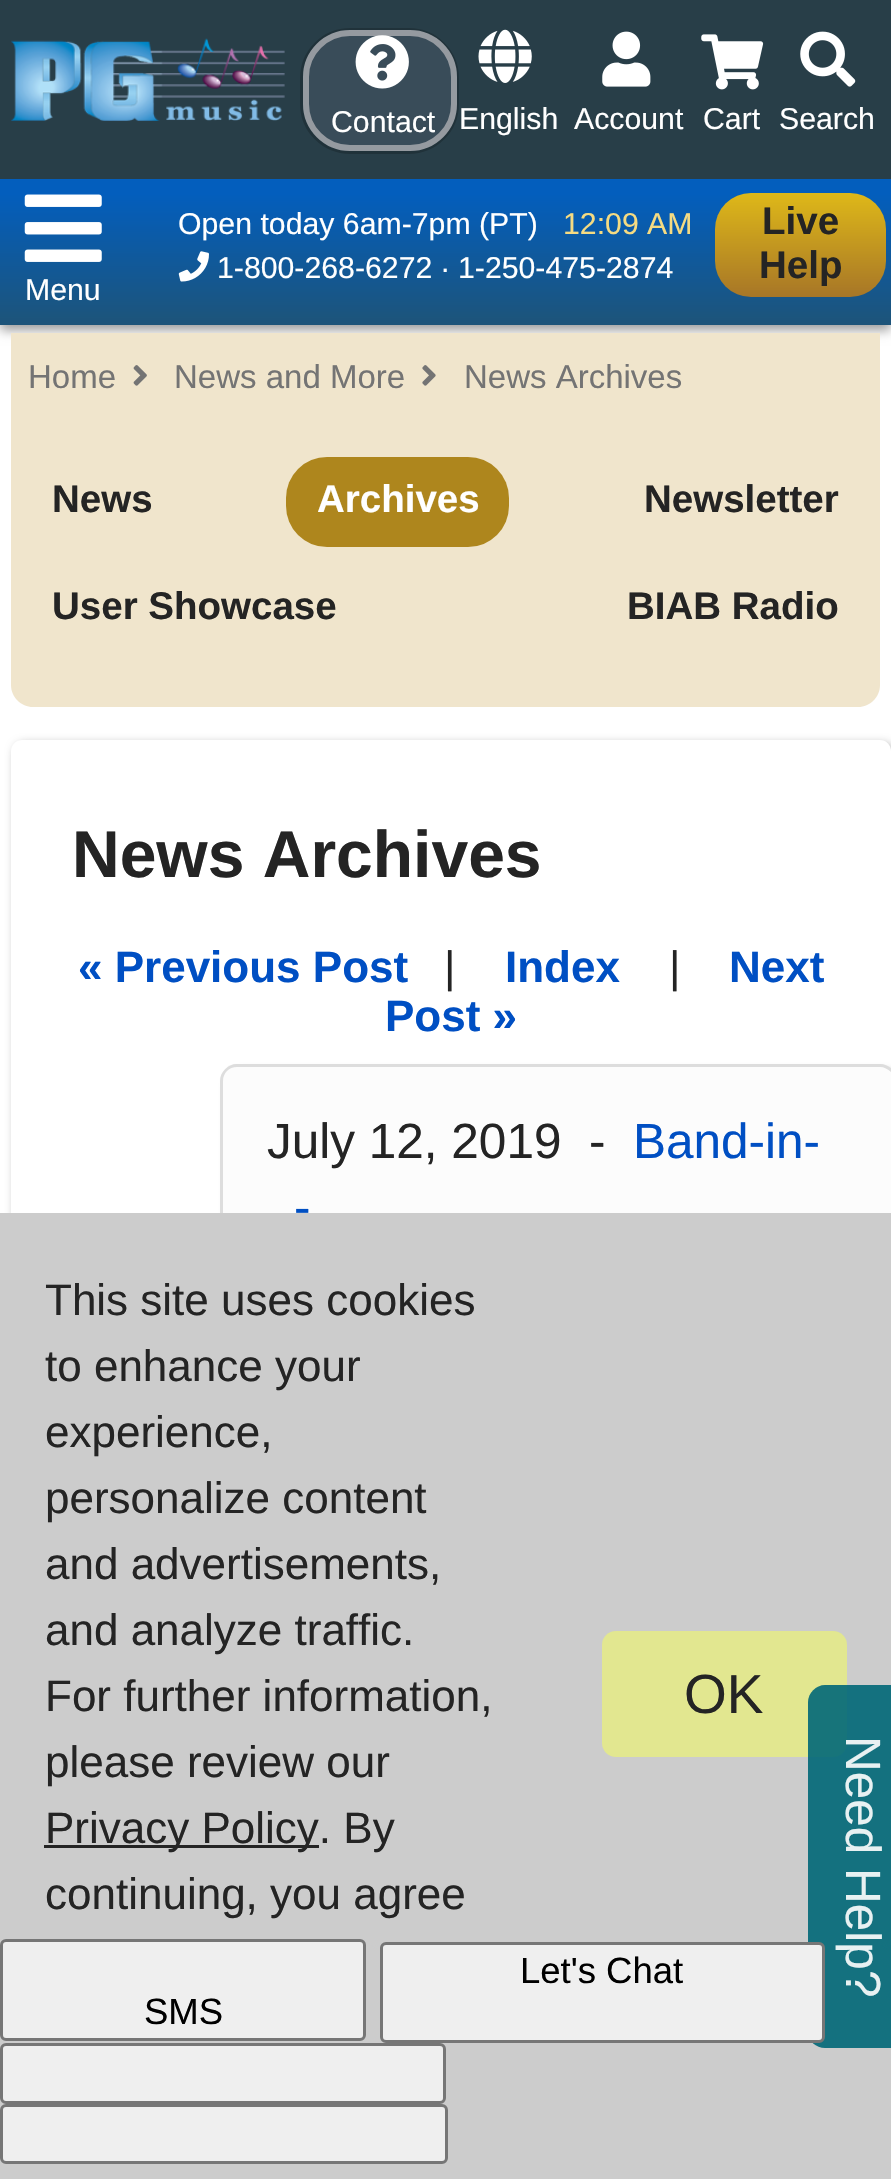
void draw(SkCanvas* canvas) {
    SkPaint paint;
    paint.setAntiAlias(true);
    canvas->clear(0xFFFFFFFF);
    paint.setColor(0xFF999999);
    paint.setMaskFilter(SkMaskFilter::MakeBlur(kNormal_SkBlurStyle, 5.5f));
    canvas->drawRect(SkRect::MakeXYWH(0, 184, 891, 146), paint);
    paint.setMaskFilter(nullptr);
    paint.setColor(0xFF283E48);
    canvas->drawRect(SkRect::MakeXYWH(0, 0, 891, 179), paint);
    canvas->drawImageRect(SkImages::DeferredFromEncodedData(SkData::MakeFromFileName("img1.png")), SkRect::MakeXYWH(11, 38, 274, 83), SkSamplingOptions());
    paint.setStyle(SkPaint::kStroke_Style);
    paint.setStrokeWidth(3);
    paint.setColor(0xFF20323A);
    canvas->drawRoundRect(SkRect::MakeXYWH(301.5f, 29.5f, 156, 123), 48.5f, 48.5f, paint);
    paint.setStyle(SkPaint::kFill_Style);
    paint.setColor(0xFF394C59);
    canvas->drawRoundRect(SkRect::MakeXYWH(306, 33, 148, 115), 44, 44, paint);
    paint.setStyle(SkPaint::kStroke_Style);
    paint.setStrokeWidth(6);
    paint.setColor(0xFF959AA0);
    canvas->drawRoundRect(SkRect::MakeXYWH(306, 33, 148, 115), 44, 44, paint);
    canvas->drawImageRect(SkImages::DeferredFromEncodedData(SkData::MakeFromFileName("img2.png")), SkRect::MakeXYWH(355, 35, 54, 54), SkSamplingOptions());
    SkFont font1(fontMgr->matchFamilyStyle("Liberation Sans", SkFontStyle::Normal()), 30.25f);
    font1.setSubpixel(true);
    paint.setStyle(SkPaint::kFill_Style);
    paint.setColor(0xFFFFFFFF);
    canvas->drawString("Contact", 331, 132, font1, paint);
    canvas->drawImageRect(SkImages::DeferredFromEncodedData(SkData::MakeFromFileName("img3.png")), SkRect::MakeXYWH(478, 29, 54, 54), SkSamplingOptions());
    canvas->drawString("English", 459, 129, font1, paint);
    canvas->drawImageRect(SkImages::DeferredFromEncodedData(SkData::MakeFromFileName("img4.png")), SkRect::MakeXYWH(602, 31, 49, 56), SkSamplingOptions());
    canvas->drawString("Account", 574, 129, font1, paint);
    canvas->drawImageRect(SkImages::DeferredFromEncodedData(SkData::MakeFromFileName("img5.png")), SkRect::MakeXYWH(701, 34, 63, 56), SkSamplingOptions());
    canvas->drawString("Cart", 703, 129, font1, paint);
    canvas->drawImageRect(SkImages::DeferredFromEncodedData(SkData::MakeFromFileName("img6.png")), SkRect::MakeXYWH(800, 31, 56, 56), SkSamplingOptions());
    canvas->drawString("Search", 779, 129, font1, paint);
    {
        const SkColor colors[] = {0xFF035EBD, 0xFF1D5479};
        const float stops[] = {0.1f, 1};
        const SkPoint ends[] = {{446, 179}, {446, 325}};
        paint.setShader(SkGradientShader::MakeLinear(ends, colors, stops, 2, SkTileMode::kClamp));
        paint.setAlpha(255);
    }
    canvas->drawRect(SkRect::MakeXYWH(0, 179, 891, 146), paint);
    paint.setShader(nullptr);
    paint.setColor(0xFFFFFFFF);
    canvas->drawString("Open today 6am-7pm (PT)", 178, 234, font1, paint);
    paint.setColor(0xFFF5DB82);
    canvas->drawString("12:09 AM", 563, 234, font1, paint);
    canvas->drawImageRect(SkImages::DeferredFromEncodedData(SkData::MakeFromFileName("img7.png")), SkRect::MakeXYWH(178, 251, 31, 31), SkSamplingOptions());
    paint.setColor(0xFFFFFFFF);
    canvas->drawString("1-800-268-6272", 217, 278, font1, paint);
    canvas->drawString(".", 441, 272, font1, paint);
    canvas->drawString("1-250-475-2874", 458, 278, font1, paint);
    {
        const SkColor colors[] = {0xFFDEB819, 0xFFA77627};
        const float stops[] = {0, 1};
        const SkPoint ends[] = {{800, 193}, {800, 297}};
        paint.setShader(SkGradientShader::MakeLinear(ends, colors, stops, 2, SkTileMode::kClamp));
        paint.setAlpha(255);
    }
    canvas->drawRoundRect(SkRect::MakeXYWH(715, 193, 171, 104), 36, 36, paint);
    SkFont font2(fontMgr->matchFamilyStyle("Liberation Sans", SkFontStyle::Bold()), 38.5f);
    font2.setSubpixel(true);
    paint.setShader(nullptr);
    paint.setColor(0xFF242424);
    canvas->drawString("Live", 762, 234, font2, paint);
    canvas->drawString("Help", 759, 278, font2, paint);
    canvas->drawImageRect(SkImages::DeferredFromEncodedData(SkData::MakeFromFileName("img8.png")), SkRect::MakeXYWH(24, 194, 78, 68), SkSamplingOptions());
    paint.setColor(0xFFFFFFFF);
    canvas->drawString("Menu", 25, 300, font1, paint);
    paint.setColor(0xFFF0E5CC);
    canvas->drawRect(SkRect::MakeXYWH(11, 333, 869, 66), paint);
    SkFont font3(fontMgr->matchFamilyStyle("Liberation Sans", SkFontStyle::Normal()), 33);
    font3.setSubpixel(true);
    paint.setColor(0xFF747474);
    canvas->drawString("Home", 28, 388, font3, paint);
    canvas->drawImageRect(SkImages::DeferredFromEncodedData(SkData::MakeFromFileName("img9.png")), SkRect::MakeXYWH(133, 365, 14, 21), SkSamplingOptions());
    canvas->drawString("News and More", 174, 388, font3, paint);
    canvas->drawImageRect(SkImages::DeferredFromEncodedData(SkData::MakeFromFileName("img10.png")), SkRect::MakeXYWH(422, 365, 14, 21), SkSamplingOptions());
    canvas->drawString("News Archives", 464, 388, font3, paint);
    paint.setColor(0xFFF0E5CC);
    canvas->drawPath(SkPathBuilder().moveTo(11, 399).lineTo(880, 399).lineTo(880, 685).cubicTo(880, 697, 870, 707, 858, 707).lineTo(33, 707).cubicTo(21, 707, 11, 697, 11, 685).close().detach(), paint);
    paint.setColor(0xFF242424);
    canvas->drawString("News", 52, 512, font2, paint);
    paint.setColor(0xFFAE861D);
    canvas->drawRoundRect(SkRect::MakeXYWH(286, 457, 223, 90), 41, 41, paint);
    paint.setColor(0xFFFFFFFF);
    canvas->drawString("Archives", 317, 512, font2, paint);
    paint.setColor(0xFF242424);
    canvas->drawString("Newsletter", 644, 512, font2, paint);
    canvas->drawString("User Showcase", 52, 619, font2, paint);
    canvas->drawString("BIAB Radio", 627, 619, font2, paint);
    paint.setColor(0x4D000000);
    paint.setMaskFilter(SkMaskFilter::MakeBlur(kNormal_SkBlurStyle, 4));
    canvas->drawRoundRect(SkRect::MakeXYWH(14, 743, 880, 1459), 11, 11, paint);
    paint.setMaskFilter(nullptr);
    paint.setColor(0xFFFFFFFF);
    canvas->drawRoundRect(SkRect::MakeXYWH(11, 740, 880, 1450), 11, 11, paint);
    SkFont font4(fontMgr->matchFamilyStyle("Liberation Sans", SkFontStyle::Bold()), 66);
    font4.setSubpixel(true);
    paint.setColor(0xFF242424);
    canvas->drawString("News Archives", 72, 877, font4, paint);
    SkFont font5(fontMgr->matchFamilyStyle("Liberation Sans", SkFontStyle::Bold()), 44);
    font5.setSubpixel(true);
    paint.setColor(0xFF004FC3);
    canvas->drawString("« Previous Post", 78, 982, font5, paint);
    SkFont font6(fontMgr->matchFamilyStyle("Liberation Sans", SkFontStyle::Normal()), 44);
    font6.setSubpixel(true);
    paint.setColor(0xFF242424);
    canvas->drawString("|", 444, 982, font6, paint);
    paint.setColor(0xFF004FC3);
    canvas->drawString("Index", 505, 982, font5, paint);
    paint.setColor(0xFF242424);
    canvas->drawString("|", 669, 982, font6, paint);
    paint.setColor(0xFF004FC3);
    canvas->drawString("Next", 729, 982, font5, paint);
    canvas->drawString("Post »", 385, 1031, font5, paint);
    paint.setColor(0xFFAAAAAA);
    paint.setMaskFilter(SkMaskFilter::MakeBlur(kNormal_SkBlurStyle, 3));
    canvas->drawRoundRect(SkRect::MakeXYWH(226, 1070, 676, 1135), 17, 17, paint);
    paint.setMaskFilter(nullptr);
    canvas->save();
    canvas->clipPath(SkPathBuilder().moveTo(237, 1064).lineTo(880, 1064).cubicTo(889.5f, 1064, 897, 1071.5f, 897, 1081).lineTo(897, 3080).cubicTo(897, 3089.5f, 889.5f, 3097, 880, 3097).lineTo(237, 3097).cubicTo(227.5f, 3097, 220, 3089.5f, 220, 3080).lineTo(220, 1081).cubicTo(220, 1071.5f, 227.5f, 1064, 237, 1064).close().detach(), true);
    {
        const SkColor colors[] = {0xFFFCFCFC, 0xFFFCFCFC, 0xFFF2F2F2};
        const float stops[] = {0, 0.44f, 1};
        const SkPoint ends[] = {{558, -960}, {558, 1067}};
        paint.setShader(SkGradientShader::MakeLinear(ends, colors, stops, 3, SkTileMode::kClamp));
        paint.setAlpha(255);
    }
    canvas->drawRect(SkRect::MakeXYWH(220, 1064, 671, 3), paint);
    {
        const SkColor colors[] = {0xFFFCFCFC, 0xFFFCFCFC, 0xFFF2F2F2};
        const float stops[] = {0, 0.44f, 1};
        const SkPoint ends[] = {{558, 1067}, {558, 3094}};
        paint.setShader(SkGradientShader::MakeLinear(ends, colors, stops, 3, SkTileMode::kClamp));
        paint.setAlpha(255);
    }
    canvas->drawRect(SkRect::MakeXYWH(220, 1067, 671, 146), paint);
    canvas->restore();
    paint.setShader(nullptr);
    paint.setColor(0xFFDDDDDD);
    canvas->drawPath(SkPathBuilder().moveTo(237, 1064).cubicTo(228, 1064, 220, 1072, 220, 1081).lineTo(220, 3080).cubicTo(220, 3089, 228, 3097, 237, 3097).lineTo(880, 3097).cubicTo(884, 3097, 888, 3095, 891, 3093).lineTo(891, 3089).cubicTo(888, 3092, 884, 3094, 880, 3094).lineTo(237, 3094).cubicTo(229, 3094, 223, 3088, 223, 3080).lineTo(223, 1081).cubicTo(223, 1073, 229, 1067, 237, 1067).lineTo(880, 1067).cubicTo(884, 1067, 888, 1069, 891, 1072).lineTo(891, 1068).cubicTo(888, 1066, 884, 1064, 880, 1064).close().detach(), paint);
    SkFont font7(fontMgr->matchFamilyStyle("Liberation Sans", SkFontStyle::Normal()), 49.5f);
    font7.setSubpixel(true);
    paint.setColor(0xFF242424);
    canvas->drawString("July 12, 2019  -", 267, 1158, font7, paint);
    paint.setColor(0xFF004FC3);
    canvas->drawString("Band-in-", 633, 1158, font7, paint);
    canvas->drawString("-", 294, 1224, font7, paint);
    paint.setColor(0xFFCCCCCC);
    canvas->drawRect(SkRect::MakeXYWH(0, 1213, 891, 966), paint);
    paint.setColor(0xFFE2E790);
    canvas->drawRoundRect(SkRect::MakeXYWH(602, 1631, 245, 126), 14, 14, paint);
    paint.setColor(0xE6006777);
    canvas->drawPath(SkPathBuilder().moveTo(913, 1702).lineTo(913, 2032).cubicTo(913, 2041, 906, 2048, 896, 2048).lineTo(825, 2048).cubicTo(816, 2048, 808, 2041, 808, 2032).lineTo(808, 1702).cubicTo(808, 1693, 816, 1685, 825, 1685).lineTo(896, 1685).cubicTo(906, 1685, 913, 1693, 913, 1702).close().detach(), paint);
    paint.setColor(0xFFE8F1F2);
    canvas->save();
    canvas->rotate(90, 846, 1736);
    canvas->drawString("Need Help?", 846, 1736, font7, paint);
    canvas->restore();
    paint.setColor(0xFF242424);
    canvas->drawString("This site uses cookies", 45, 1315, font6, paint);
    canvas->drawString("to enhance your", 45, 1381, font6, paint);
    canvas->drawString("experience,", 45, 1447, font6, paint);
    canvas->drawString("personalize content", 45, 1513, font6, paint);
    canvas->drawString("and advertisements,", 45, 1579, font6, paint);
    canvas->drawString("and analyze traffic.", 45, 1645, font6, paint);
    canvas->drawString("For further information,", 45, 1711, font6, paint);
    canvas->drawString("please review our", 45, 1777, font6, paint);
    canvas->drawRect(SkRect::MakeXYWH(44, 1845, 275, 3), paint);
    canvas->drawString("Privacy Policy. By", 45, 1843, font6, paint);
    canvas->drawString("continuing, you agree", 45, 1909, font6, paint);
    SkFont font8(fontMgr->matchFamilyStyle("Liberation Sans", SkFontStyle::Normal()), 55);
    font8.setSubpixel(true);
    canvas->drawString("OK", 684, 1713, font8, paint);
    paint.setColor(0xFFEFEFEF);
    canvas->drawRoundRect(SkRect::MakeXYWH(381.5f, 1943.5f, 442, 98), 4.5f, 4.5f, paint);
    paint.setStyle(SkPaint::kStroke_Style);
    paint.setStrokeWidth(3);
    paint.setColor(0xFF767676);
    canvas->drawRoundRect(SkRect::MakeXYWH(381.5f, 1943.5f, 442, 98), 4.5f, 4.5f, paint);
    SkFont font9(fontMgr->matchFamilyStyle("Liberation Sans", SkFontStyle::Normal()), 36.5f);
    font9.setSubpixel(true);
    paint.setStyle(SkPaint::kFill_Style);
    paint.setColor(0xFF000000);
    canvas->drawString("Let's Chat", 520, 1983, font9, paint);
    paint.setColor(0xFFEFEFEF);
    canvas->drawRoundRect(SkRect::MakeXYWH(1.5f, 1940.5f, 363, 99), 4.5f, 4.5f, paint);
    paint.setStyle(SkPaint::kStroke_Style);
    paint.setColor(0xFF767676);
    canvas->drawRoundRect(SkRect::MakeXYWH(1.5f, 1940.5f, 363, 99), 4.5f, 4.5f, paint);
    paint.setStyle(SkPaint::kFill_Style);
    paint.setColor(0xFF000000);
    canvas->drawString("SMS", 144, 2024, font9, paint);
    paint.setColor(0xFFEFEFEF);
    canvas->drawRoundRect(SkRect::MakeXYWH(1.5f, 2044.5f, 443, 58), 4.5f, 4.5f, paint);
    paint.setStyle(SkPaint::kStroke_Style);
    paint.setColor(0xFF767676);
    canvas->drawRoundRect(SkRect::MakeXYWH(1.5f, 2044.5f, 443, 58), 4.5f, 4.5f, paint);
    paint.setStyle(SkPaint::kFill_Style);
    paint.setColor(0xFFEFEFEF);
    canvas->drawRoundRect(SkRect::MakeXYWH(1.5f, 2105.5f, 445, 57), 4.5f, 4.5f, paint);
    paint.setStyle(SkPaint::kStroke_Style);
    paint.setColor(0xFF767676);
    canvas->drawRoundRect(SkRect::MakeXYWH(1.5f, 2105.5f, 445, 57), 4.5f, 4.5f, paint);
}
